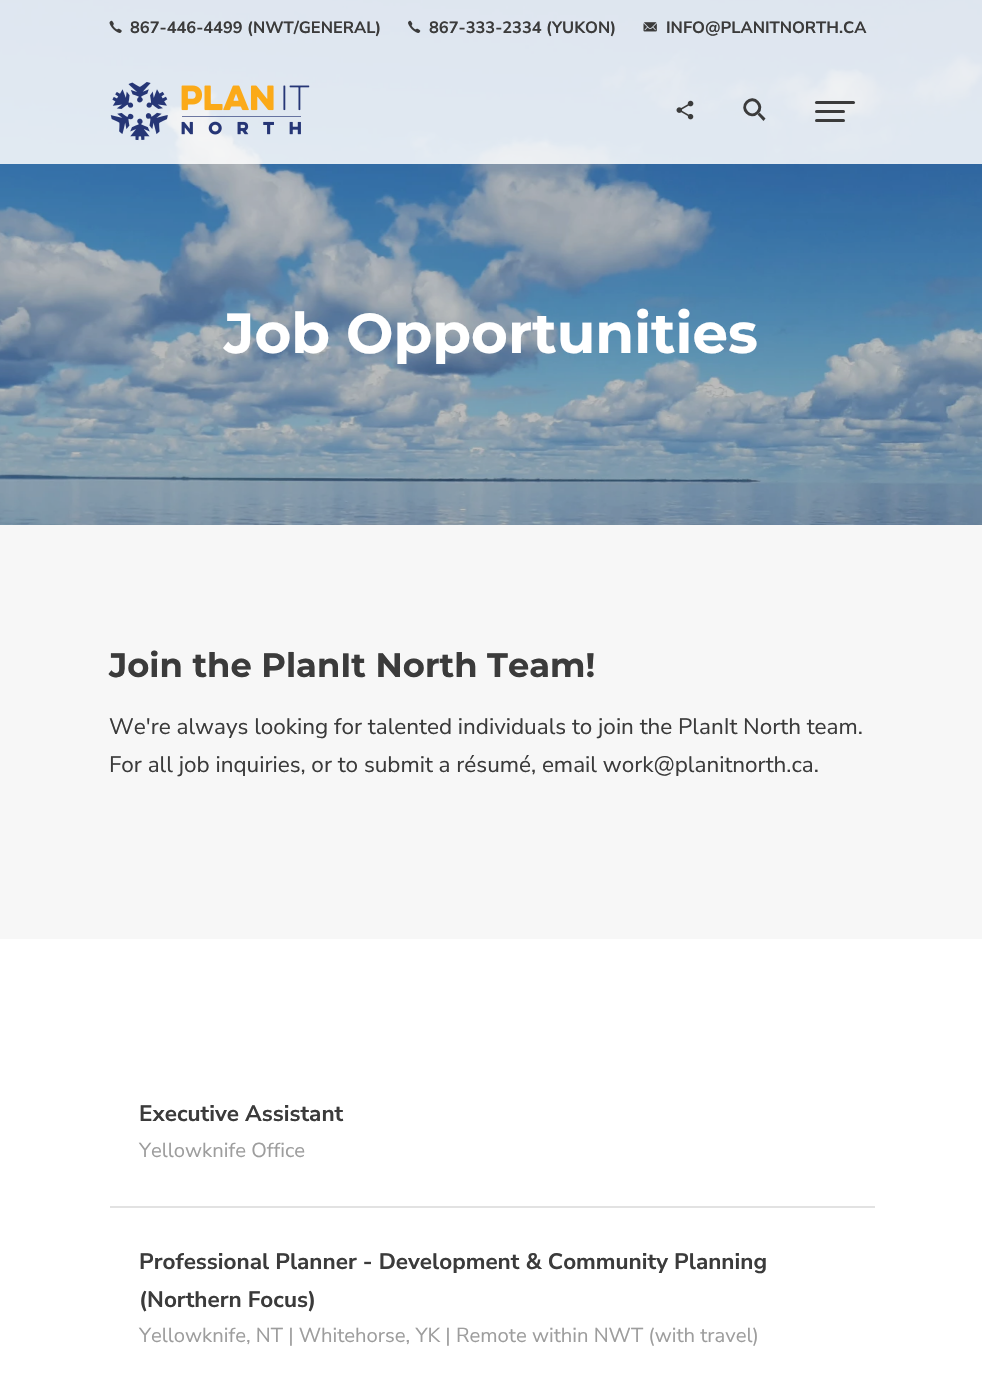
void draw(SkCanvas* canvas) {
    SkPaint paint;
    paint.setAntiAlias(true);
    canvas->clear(0xFFFFFFFF);
    paint.setColor(0xFF1C1C1C);
    canvas->drawRect(SkRect::MakeXYWH(0, 0, 982, 525), paint);
    canvas->drawImageRect(SkImages::DeferredFromEncodedData(SkData::MakeFromFileName("img6.png")), SkRect::MakeXYWH(0, 0, 982, 525), SkSamplingOptions());
    paint.setColor(0xD9FFFFFF);
    canvas->drawRect(SkRect::MakeXYWH(0, 0, 982, 59), paint);
    canvas->drawImageRect(SkImages::DeferredFromEncodedData(SkData::MakeFromFileName("img1.png")), SkRect::MakeXYWH(109, 20, 13, 13), SkSamplingOptions());
    SkFont font1(fontMgr->matchFamilyStyle("Nunito Sans", SkFontStyle::Bold()), 16.4f);
    font1.setSubpixel(true);
    paint.setColor(0xFF3B3B3B);
    canvas->drawString("867-446-4499 (NWT/GENERAL)", 130, 33, font1, paint);
    canvas->drawImageRect(SkImages::DeferredFromEncodedData(SkData::MakeFromFileName("img2.png")), SkRect::MakeXYWH(408, 20, 13, 13), SkSamplingOptions());
    canvas->drawString("867-333-2334 (YUKON)", 429, 33, font1, paint);
    canvas->drawImageRect(SkImages::DeferredFromEncodedData(SkData::MakeFromFileName("img3.png")), SkRect::MakeXYWH(643, 22, 14, 10), SkSamplingOptions());
    canvas->drawString("INFO@PLANITNORTH.CA", 666, 33, font1, paint);
    paint.setColor(0xD9FFFFFF);
    canvas->drawRect(SkRect::MakeXYWH(0, 59, 982, 105), paint);
    canvas->drawImageRect(SkImages::DeferredFromEncodedData(SkData::MakeFromFileName("img4.png")), SkRect::MakeXYWH(110, 82, 200, 59), SkSamplingOptions());
    canvas->drawImageRect(SkImages::DeferredFromEncodedData(SkData::MakeFromFileName("img5.png")), SkRect::MakeXYWH(676, 100, 18, 20), SkSamplingOptions());
    paint.setStyle(SkPaint::kStroke_Style);
    paint.setStrokeWidth(3);
    paint.setColor(0xFF3B3B3B);
    canvas->drawPath(SkPathBuilder().moveTo(747, 102).cubicTo(754, 95, 764.5f, 106, 757.5f, 112.5f).cubicTo(750.5f, 119.5f, 740, 109, 747, 102).close().detach(), paint);
    paint.setStyle(SkPaint::kFill_Style);
    canvas->drawPath(SkPathBuilder().moveTo(757.5f, 114.5f).lineTo(759.5f, 112.5f).lineTo(765.5f, 118.5f).lineTo(763.5f, 121).close().detach(), paint);
    canvas->drawRoundRect(SkRect::MakeXYWH(815, 101, 40, 3), 1.5f, 1.5f, paint);
    canvas->drawRoundRect(SkRect::MakeXYWH(815, 110, 30, 3), 1.5f, 1.5f, paint);
    canvas->drawRoundRect(SkRect::MakeXYWH(815, 119, 30, 3), 1.5f, 1.5f, paint);
    SkFont font2(fontMgr->matchFamilyStyle("Montserrat", SkFontStyle::Bold()), 56.25f);
    font2.setSubpixel(true);
    paint.setColor(0xFFFFFFFF);
    canvas->drawString("Job Opportunities", 224, 353, font2, paint);
    paint.setColor(0xFFF7F7F7);
    canvas->drawRect(SkRect::MakeXYWH(0, 525, 982, 414), paint);
    SkFont font3(fontMgr->matchFamilyStyle("Montserrat", SkFontStyle::Bold()), 33.75f);
    font3.setSubpixel(true);
    paint.setColor(0xFF3B3B3B);
    canvas->drawString("Join the PlanIt North Team!", 109, 677, font3, paint);
    SkFont font4(fontMgr->matchFamilyStyle("Nunito Sans", SkFontStyle::Normal()), 22.5f);
    font4.setSubpixel(true);
    canvas->drawString("We're always looking for talented individuals to join the PlanIt North team.", 109, 734, font4, paint);
    canvas->drawString("For all job inquiries, or to submit a résumé, email work@planitnorth.ca.", 109, 772, font4, paint);
    SkFont font5(fontMgr->matchFamilyStyle("Nunito Sans", SkFontStyle::Bold()), 22.5f);
    font5.setSubpixel(true);
    canvas->drawString("Executive Assistant", 139, 1121, font5, paint);
    SkFont font6(fontMgr->matchFamilyStyle("Nunito Sans", SkFontStyle::Normal()), 20.25f);
    font6.setSubpixel(true);
    paint.setColor(0xFF9D9D9D);
    canvas->drawString("Yellowknife Office", 139, 1157, font6, paint);
    paint.setColor(0xFFE2E2E2);
    canvas->drawRect(SkRect::MakeXYWH(110, 1206, 765, 2), paint);
    paint.setColor(0xFF3B3B3B);
    canvas->drawString("Professional Planner - Development & Community Planning", 139, 1269, font5, paint);
    canvas->drawString("(Northern Focus)", 139, 1307, font5, paint);
    paint.setColor(0xFF9D9D9D);
    canvas->drawString("Yellowknife, NT | Whitehorse, YK | Remote within NWT (with travel)", 139, 1342, font6, paint);
}
